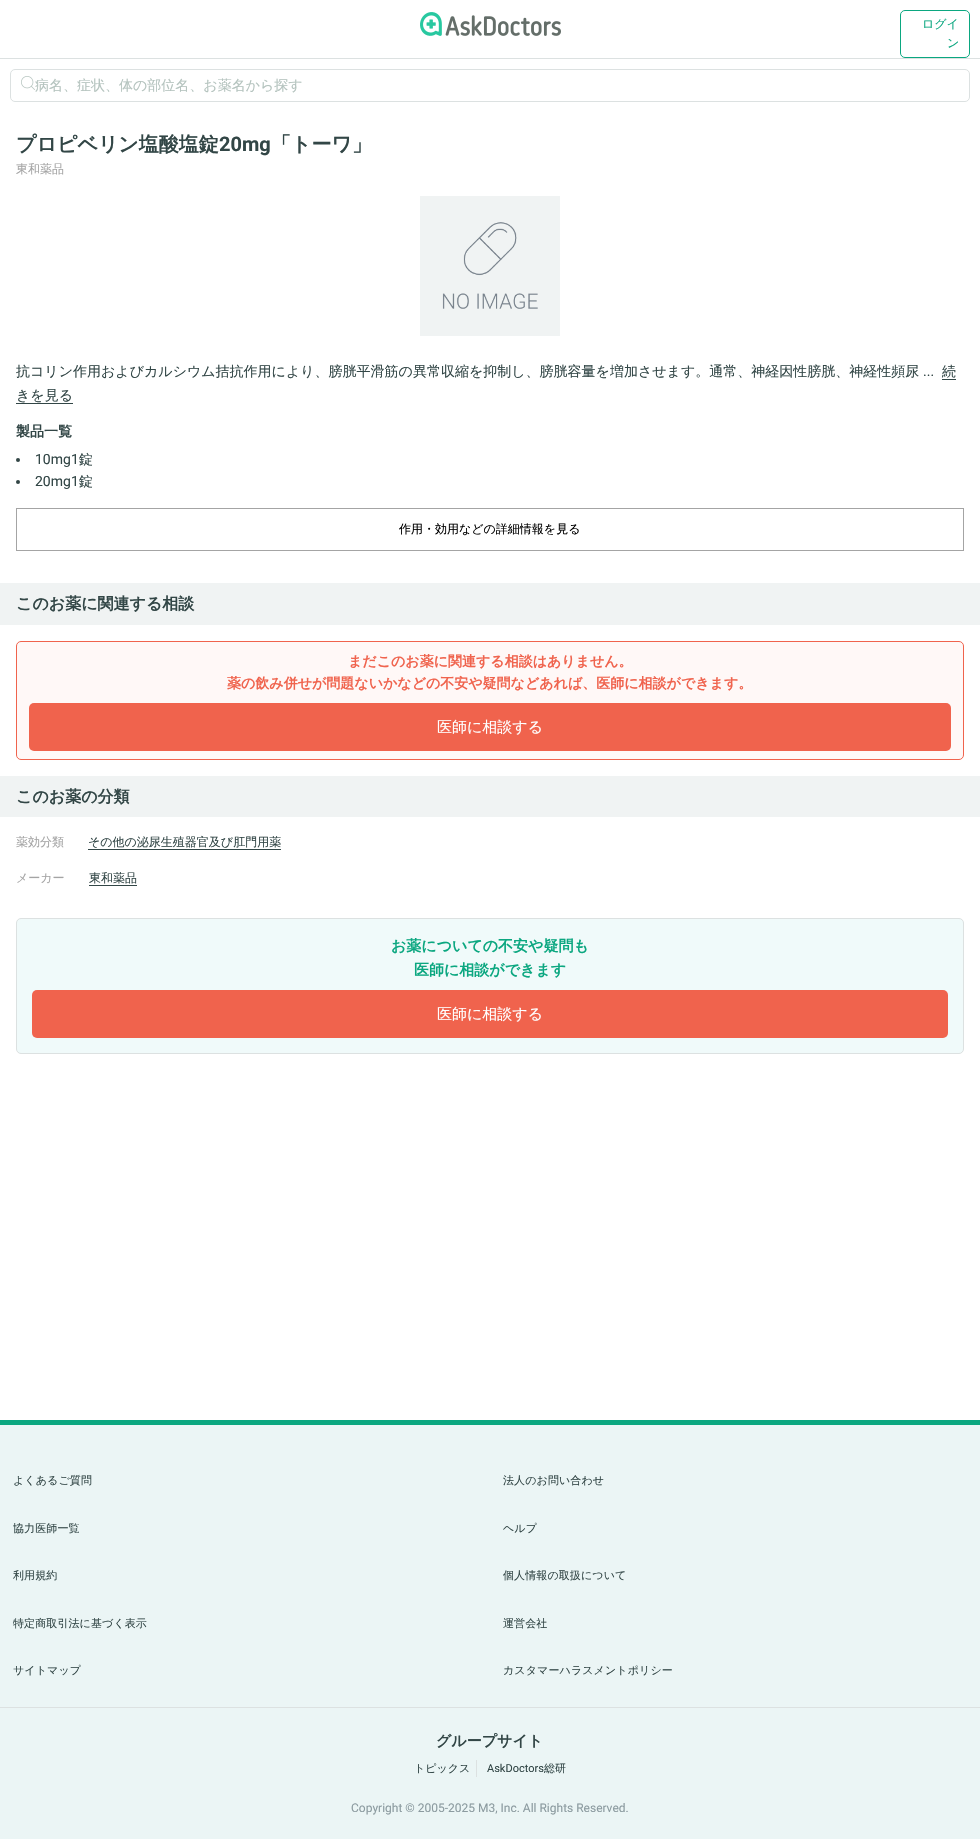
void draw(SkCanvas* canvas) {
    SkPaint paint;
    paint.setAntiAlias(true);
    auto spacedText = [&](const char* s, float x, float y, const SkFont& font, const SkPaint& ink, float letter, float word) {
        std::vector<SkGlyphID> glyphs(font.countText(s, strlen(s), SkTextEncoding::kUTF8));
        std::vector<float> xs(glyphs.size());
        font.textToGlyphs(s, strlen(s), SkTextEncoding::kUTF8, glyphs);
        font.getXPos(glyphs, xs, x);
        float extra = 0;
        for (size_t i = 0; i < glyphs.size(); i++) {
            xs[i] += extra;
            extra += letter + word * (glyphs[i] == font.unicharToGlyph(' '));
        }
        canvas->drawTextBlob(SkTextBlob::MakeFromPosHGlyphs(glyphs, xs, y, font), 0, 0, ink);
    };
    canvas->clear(0xFFFFFFFF);
    paint.setColor(0xFFDCE1E1);
    canvas->drawRect(SkRect::MakeXYWH(0, 58, 980, 1), paint);
    canvas->drawImageRect(SkImages::DeferredFromEncodedData(SkData::MakeFromFileName("img1.png")), SkRect::MakeXYWH(420, 12, 141, 24), SkSamplingOptions());
    paint.setStyle(SkPaint::kStroke_Style);
    paint.setStrokeWidth(1);
    paint.setColor(0xFF0BA780);
    canvas->drawRoundRect(SkRect::MakeXYWH(900.5f, 10.5f, 69, 47), 4.5f, 4.5f, paint);
    SkFont font1(fontMgr->matchFamilyStyle("WenQuanYi Zen Hei", SkFontStyle(500, SkFontStyle::kNormal_Width, SkFontStyle::kUpright_Slant)), 12);
    font1.setSubpixel(true);
    paint.setStyle(SkPaint::kFill_Style);
    canvas->drawString("ログイ", 922, 28, font1, paint);
    canvas->drawString("ン", 947, 47, font1, paint);
    paint.setStyle(SkPaint::kStroke_Style);
    paint.setColor(0xFFDCE1E1);
    canvas->drawRoundRect(SkRect::MakeXYWH(10.5f, 69.5f, 959, 32), 4.5f, 4.5f, paint);
    canvas->drawImageRect(SkImages::DeferredFromEncodedData(SkData::MakeFromFileName("img2.png")), SkRect::MakeXYWH(21, 76, 14, 14), SkSamplingOptions());
    SkFont font2(fontMgr->matchFamilyStyle("WenQuanYi Zen Hei", SkFontStyle(500, SkFontStyle::kNormal_Width, SkFontStyle::kUpright_Slant)), 14);
    font2.setSubpixel(true);
    paint.setStyle(SkPaint::kFill_Style);
    paint.setColor(0xFFB4C3BE);
    canvas->drawString("病名、症状、体の部位名、お薬名から探す", 35, 90, font2, paint);
    SkFont font3(fontMgr->matchFamilyStyle("WenQuanYi Zen Hei", SkFontStyle::Bold()), 20);
    font3.setSubpixel(true);
    paint.setColor(0xFF324646);
    canvas->drawString("プロピベリン塩酸塩錠", 16, 151, font3, paint);
    SkFont font4(fontMgr->matchFamilyStyle("Roboto", SkFontStyle::Bold()), 20);
    font4.setSubpixel(true);
    canvas->drawString("20mg", 219, 151, font4, paint);
    canvas->drawString("「トーワ」", 271, 151, font3, paint);
    paint.setColor(0xFFA4A4A4);
    canvas->drawString("東和薬品", 16, 173, font1, paint);
    canvas->drawImageRect(SkImages::DeferredFromEncodedData(SkData::MakeFromFileName("img3.png")), SkRect::MakeXYWH(420, 196, 140, 140), SkSamplingOptions());
    paint.setColor(0xFF324646);
    canvas->drawString("抗コリン作用およびカルシウム拮抗作用により、膀胱平滑筋の異常収縮を抑制し、膀胱容量を増加させます。通常、神経因性膀胱、神経性頻尿", 16, 376, font2, paint);
    SkFont font5(fontMgr->matchFamilyStyle("Roboto", SkFontStyle::Normal()), 14);
    font5.setSubpixel(true);
    canvas->drawString("...", 923, 376, font5, paint);
    canvas->drawRect(SkRect::MakeXYWH(942, 379, 14, 1), paint);
    canvas->drawString("続", 942, 376, font2, paint);
    canvas->drawString("きを見る", 16, 400, font2, paint);
    canvas->drawRect(SkRect::MakeXYWH(16, 403, 57, 1), paint);
    SkFont font6(fontMgr->matchFamilyStyle("WenQuanYi Zen Hei", SkFontStyle::Bold()), 14);
    font6.setSubpixel(true);
    canvas->drawString("製品一覧", 16, 436, font6, paint);
    canvas->drawCircle(18, 460, 2, paint);
    canvas->drawString("10mg1", 35, 464, font5, paint);
    canvas->drawString("錠", 79, 464, font2, paint);
    canvas->drawCircle(18, 482, 2, paint);
    canvas->drawString("20mg1", 35, 486, font5, paint);
    canvas->drawString("錠", 79, 486, font2, paint);
    paint.setStyle(SkPaint::kStroke_Style);
    paint.setColor(0xFFA4A4A4);
    canvas->drawRect(SkRect::MakeXYWH(16.5f, 508.5f, 947, 42), paint);
    paint.setStyle(SkPaint::kFill_Style);
    paint.setColor(0xFF000000);
    canvas->drawString("作用・効用などの詳細情報を見る", 399, 533, font1, paint);
    paint.setColor(0xFFF0F3F3);
    canvas->drawRect(SkRect::MakeXYWH(0, 583, 980, 42), paint);
    SkFont font7(fontMgr->matchFamilyStyle("WenQuanYi Zen Hei", SkFontStyle::Bold()), 16);
    font7.setSubpixel(true);
    paint.setColor(0xFF324646);
    canvas->drawString("このお薬に関連する相談", 16, 609, font7, paint);
    paint.setColor(0xFFFFF8F7);
    canvas->drawRoundRect(SkRect::MakeXYWH(16.5f, 641.5f, 947, 118), 4.5f, 4.5f, paint);
    paint.setStyle(SkPaint::kStroke_Style);
    paint.setColor(0xFFF0634D);
    canvas->drawRoundRect(SkRect::MakeXYWH(16.5f, 641.5f, 947, 118), 4.5f, 4.5f, paint);
    paint.setStyle(SkPaint::kFill_Style);
    canvas->drawString("まだこのお薬に関連する相談はありません。", 348, 666, font6, paint);
    canvas->drawString("薬の飲み併せが問題ないかなどの不安や疑問などあれば、医師に相談ができます。", 227, 688, font6, paint);
    canvas->drawRoundRect(SkRect::MakeXYWH(29, 703, 922, 48), 5, 5, paint);
    SkFont font8(fontMgr->matchFamilyStyle("WenQuanYi Zen Hei", SkFontStyle(500, SkFontStyle::kNormal_Width, SkFontStyle::kUpright_Slant)), 15);
    font8.setSubpixel(true);
    paint.setColor(0xFFFFFFFF);
    canvas->drawString("医師に相談する", 437, 732, font8, paint);
    paint.setColor(0xFFF0F3F3);
    canvas->drawRect(SkRect::MakeXYWH(0, 776, 980, 41), paint);
    paint.setColor(0xFF324646);
    canvas->drawString("このお薬の分類", 16, 802, font7, paint);
    paint.setColor(0xFFA4A4A4);
    canvas->drawString("薬効分類", 16, 846, font1, paint);
    paint.setColor(0xFF324646);
    canvas->drawString("その他の泌尿生殖器官及び肛門用薬", 88, 846, font1, paint);
    canvas->drawRect(SkRect::MakeXYWH(88, 849, 193, 1), paint);
    paint.setColor(0xFFA4A4A4);
    canvas->drawString("メーカー", 16, 882, font1, paint);
    paint.setColor(0xFF324646);
    canvas->drawString("東和薬品", 89, 882, font1, paint);
    canvas->drawRect(SkRect::MakeXYWH(89, 885, 48, 1), paint);
    paint.setColor(0xFFF0FAFA);
    canvas->drawRoundRect(SkRect::MakeXYWH(16.5f, 918.5f, 947, 135), 4.5f, 4.5f, paint);
    paint.setStyle(SkPaint::kStroke_Style);
    paint.setColor(0xFFDCE1E1);
    canvas->drawRoundRect(SkRect::MakeXYWH(16.5f, 918.5f, 947, 135), 4.5f, 4.5f, paint);
    SkFont font9(fontMgr->matchFamilyStyle("WenQuanYi Zen Hei", SkFontStyle::Bold()), 15);
    font9.setSubpixel(true);
    paint.setStyle(SkPaint::kFill_Style);
    paint.setColor(0xFF0BA780);
    canvas->drawString("お薬についての不安や疑問も", 391, 951, font9, paint);
    canvas->drawString("医師に相談ができます", 414, 975, font9, paint);
    paint.setColor(0xFFF0634D);
    canvas->drawRoundRect(SkRect::MakeXYWH(32, 990, 916, 48), 5, 5, paint);
    paint.setColor(0xFFFFFFFF);
    canvas->drawString("医師に相談する", 437, 1019, font8, paint);
    paint.setColor(0xFFEBF5F5);
    canvas->drawRect(SkRect::MakeXYWH(0, 1425, 980, 414), paint);
    paint.setColor(0xFF0BA780);
    canvas->drawRect(SkRect::MakeXYWH(0, 1420, 980, 5), paint);
    paint.setColor(0xFFDCE1E1);
    canvas->drawRect(SkRect::MakeXYWH(0, 1707, 980, 1), paint);
    SkFont font10(fontMgr->matchFamilyStyle("WenQuanYi Zen Hei", SkFontStyle(500, SkFontStyle::kNormal_Width, SkFontStyle::kUpright_Slant)), 11);
    font10.setSubpixel(true);
    paint.setColor(0xFF324646);
    spacedText("よくあるご質問", 13, 1484, font10, paint, 0.1f, 0);
    spacedText("法人のお問い合わせ", 503, 1484, font10, paint, 0.1f, 0);
    spacedText("協力医師一覧", 13, 1532, font10, paint, 0.1f, 0);
    spacedText("ヘルプ", 503, 1532, font10, paint, 0.1f, 0);
    spacedText("利用規約", 13, 1579, font10, paint, 0.1f, 0);
    spacedText("個人情報の取扱について", 503, 1579, font10, paint, 0.1f, 0);
    spacedText("特定商取引法に基づく表示", 13, 1627, font10, paint, 0.1f, 0);
    spacedText("運営会社", 503, 1627, font10, paint, 0.1f, 0);
    spacedText("サイトマップ", 13, 1674, font10, paint, 0.1f, 0);
    spacedText("カスタマーハラスメントポリシー", 503, 1674, font10, paint, 0.1f, 0);
    canvas->drawString("グループサイト", 436, 1746, font9, paint);
    paint.setColor(0xFFDCE1E1);
    canvas->drawRect(SkRect::MakeXYWH(476, 1760, 1, 17), paint);
    paint.setColor(0xFF324646);
    canvas->drawString("トピックス", 414, 1772, font10, paint);
    SkFont font11(fontMgr->matchFamilyStyle("Roboto", SkFontStyle::Normal()), 11);
    font11.setSubpixel(true);
    canvas->drawString("AskDoctors", 487, 1772, font11, paint);
    canvas->drawString("総研", 544, 1772, font10, paint);
    SkFont font12(fontMgr->matchFamilyStyle("Roboto", SkFontStyle::Normal()), 12);
    font12.setSubpixel(true);
    paint.setColor(0xFF8C9BA0);
    canvas->drawString("Copyright © 2005-2025 M3, Inc. All Rights Reserved.", 351, 1812, font12, paint);
}
